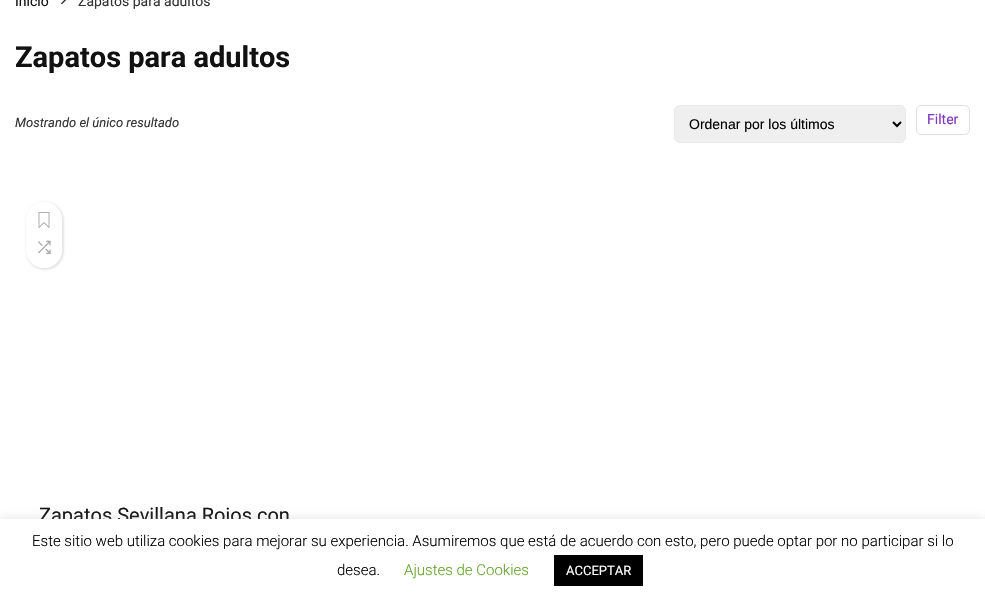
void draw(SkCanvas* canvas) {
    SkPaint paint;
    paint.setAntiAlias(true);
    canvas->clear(0xFFFFFFFF);
    SkFont font1(fontMgr->matchFamilyStyle("Roboto", SkFontStyle::Normal()), 14);
    font1.setSubpixel(true);
    paint.setColor(0xFF111111);
    canvas->drawString("Inicio", 15, 6, font1, paint);
    canvas->drawImageRect(SkImages::DeferredFromEncodedData(SkData::MakeFromFileName("img1.png")), SkRect::MakeXYWH(61, 0, 6, 5), SkSamplingOptions());
    paint.setColor(0xFF333333);
    canvas->drawString("Zapatos para adultos", 78, 6, font1, paint);
    SkFont font2(fontMgr->matchFamilyStyle("Roboto", SkFontStyle::Bold()), 29);
    font2.setSubpixel(true);
    paint.setColor(0xFF111111);
    canvas->drawString("Zapatos para adultos", 15, 67, font2, paint);
    SkFont font3(fontMgr->matchFamilyStyle("Roboto", SkFontStyle::Italic()), 13);
    font3.setSubpixel(true);
    paint.setColor(0xFF333333);
    canvas->drawString("Mostrando el único resultado", 15, 127, font3, paint);
    paint.setColor(0xFFEFEFEF);
    canvas->drawRoundRect(SkRect::MakeXYWH(674.5f, 105.5f, 231, 37), 5.5f, 5.5f, paint);
    paint.setStyle(SkPaint::kStroke_Style);
    paint.setStrokeWidth(1);
    paint.setColor(0xFFE8E8E8);
    canvas->drawRoundRect(SkRect::MakeXYWH(674.5f, 105.5f, 231, 37), 5.5f, 5.5f, paint);
    paint.setStrokeWidth(2);
    paint.setColor(0xFF000000);
    canvas->drawPath(SkPathBuilder().moveTo(893, 122).lineTo(897, 126).lineTo(901, 122).detach(), paint);
    SkFont font4(fontMgr->matchFamilyStyle("Liberation Sans", SkFontStyle::Normal()), 14);
    font4.setSubpixel(true);
    paint.setStyle(SkPaint::kFill_Style);
    canvas->drawString("Ordenar por los últimos", 689, 129, font4, paint);
    paint.setStyle(SkPaint::kStroke_Style);
    paint.setStrokeWidth(1);
    paint.setColor(0xFFDCE0E0);
    canvas->drawRoundRect(SkRect::MakeXYWH(916.5f, 105.5f, 53, 29), 4.5f, 4.5f, paint);
    paint.setStyle(SkPaint::kFill_Style);
    paint.setColor(0xFF8035BE);
    canvas->drawString("Filter", 927, 124, font1, paint);
    canvas->save();
    canvas->clipPath(SkPathBuilder(SkPathFillType::kEvenOdd).moveTo(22, 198).lineTo(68, 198).lineTo(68, 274).lineTo(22, 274).close().moveTo(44, 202).cubicTo(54, 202, 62, 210, 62, 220).lineTo(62, 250).cubicTo(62, 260, 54, 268, 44, 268).cubicTo(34, 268, 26, 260, 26, 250).lineTo(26, 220).cubicTo(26, 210, 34, 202, 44, 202).close().detach(), true);
    paint.setColor(0x1A000000);
    paint.setMaskFilter(SkMaskFilter::MakeBlur(kNormal_SkBlurStyle, 1));
    canvas->drawRoundRect(SkRect::MakeXYWH(26, 202, 38, 68), 19, 19, paint);
    paint.setMaskFilter(nullptr);
    canvas->restore();
    paint.setColor(0xC7FFFFFF);
    canvas->drawRoundRect(SkRect::MakeXYWH(26, 202, 36, 66), 18, 18, paint);
    canvas->drawImageRect(SkImages::DeferredFromEncodedData(SkData::MakeFromFileName("img2.png")), SkRect::MakeXYWH(38, 212, 12, 16), SkSamplingOptions());
    canvas->drawImageRect(SkImages::DeferredFromEncodedData(SkData::MakeFromFileName("img3.png")), SkRect::MakeXYWH(38, 240, 13, 14), SkSamplingOptions());
    SkFont font5(fontMgr->matchFamilyStyle("Roboto", SkFontStyle::Normal()), 20);
    font5.setSubpixel(true);
    paint.setColor(0xFF111111);
    canvas->drawString("Zapatos Sevillana Rojos con", 39, 522, font5, paint);
    paint.setColor(0x4DACABAB);
    paint.setMaskFilter(SkMaskFilter::MakeBlur(kNormal_SkBlurStyle, 5));
    canvas->drawRect(SkRect::MakeXYWH(0, 518, 985, 84), paint);
    paint.setMaskFilter(nullptr);
    paint.setColor(0xFFFFFFFF);
    canvas->drawRect(SkRect::MakeXYWH(0, 519, 985, 84), paint);
    SkFont font6(fontMgr->matchFamilyStyle("Roboto", SkFontStyle(300, SkFontStyle::kNormal_Width, SkFontStyle::kUpright_Slant)), 15);
    font6.setSubpixel(true);
    paint.setColor(0xFF000000);
    canvas->drawString("Este sitio web utiliza cookies para mejorar su experiencia. Asumiremos que está de acuerdo con esto, pero puede optar por no participar si lo", 32, 546, font6, paint);
    canvas->drawString("desea.", 337, 575, font6, paint);
    paint.setColor(0xFF62A329);
    canvas->drawString("Ajustes de Cookies", 404, 575, font6, paint);
    paint.setColor(0xFF000000);
    canvas->drawRect(SkRect::MakeXYWH(554, 555, 89, 31), paint);
    SkFont font7(fontMgr->matchFamilyStyle("Roboto", SkFontStyle::Normal()), 13);
    font7.setSubpixel(true);
    paint.setColor(0xFFFFFFFF);
    canvas->drawString("ACCEPTAR", 566, 575, font7, paint);
}
